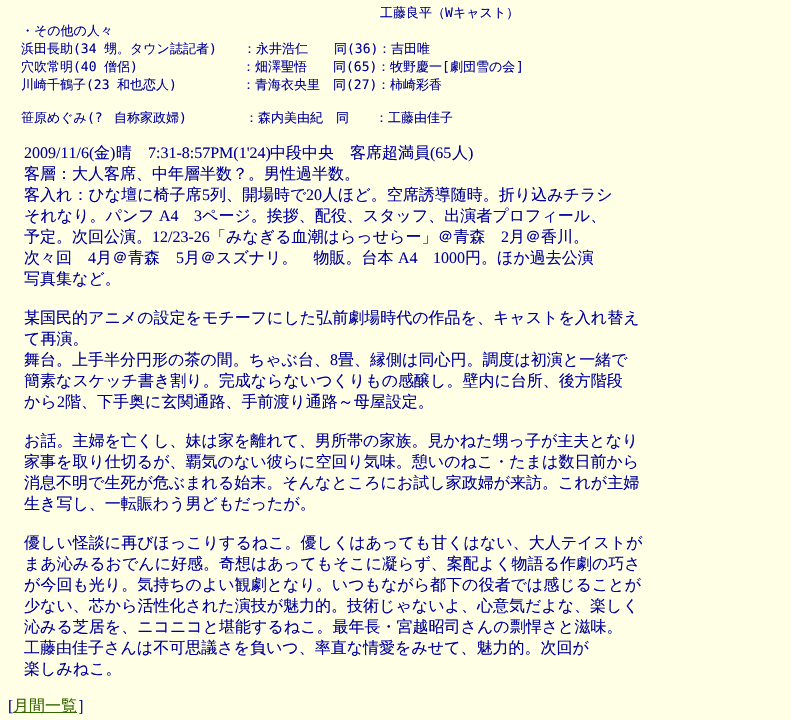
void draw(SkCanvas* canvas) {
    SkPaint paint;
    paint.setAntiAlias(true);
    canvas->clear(0xFFFFFFE6);
    SkFont font1(fontMgr->matchFamilyStyle("WenQuanYi Zen Hei", SkFontStyle(500, SkFontStyle::kNormal_Width, SkFontStyle::kUpright_Slant)), 13);
    font1.setSubpixel(true);
    paint.setColor(0xFF000099);
    canvas->drawString("工藤良平（", 380, 17, font1, paint);
    SkFont font2(fontMgr->matchFamilyStyle("DejaVu Sans Mono", SkFontStyle::Normal()), 13);
    font2.setSubpixel(true);
    canvas->drawString("W", 445, 17, font2, paint);
    canvas->drawString("キャスト）", 453, 17, font1, paint);
    canvas->drawString("・その他の人々", 21, 35, font1, paint);
    canvas->drawString("浜田長助", 21, 53, font1, paint);
    canvas->drawString("(34", 73, 53, font2, paint);
    canvas->drawString("甥。タウン誌記者", 104, 53, font1, paint);
    canvas->drawString(")", 209, 53, font2, paint);
    canvas->drawString("：永井浩仁　　同", 243, 53, font1, paint);
    canvas->drawString("(36)", 347, 53, font2, paint);
    canvas->drawString("：吉田唯", 378, 53, font1, paint);
    canvas->drawString("穴吹常明", 21, 71, font1, paint);
    canvas->drawString("(40", 73, 71, font2, paint);
    canvas->drawString("僧侶", 104, 71, font1, paint);
    canvas->drawString(")", 130, 71, font2, paint);
    canvas->drawString("：畑澤聖悟　　同", 242, 71, font1, paint);
    canvas->drawString("(65)", 346, 71, font2, paint);
    canvas->drawString("：牧野慶一", 377, 71, font1, paint);
    canvas->drawString("[", 442, 71, font2, paint);
    canvas->drawString("劇団雪の会", 450, 71, font1, paint);
    canvas->drawString("]", 516, 71, font2, paint);
    canvas->drawString("川崎千鶴子", 21, 89, font1, paint);
    canvas->drawString("(23", 86, 89, font2, paint);
    canvas->drawString("和也恋人", 117, 89, font1, paint);
    canvas->drawString(")", 169, 89, font2, paint);
    canvas->drawString("：青海衣央里　同", 242, 89, font1, paint);
    canvas->drawString("(27)", 346, 89, font2, paint);
    canvas->drawString("：柿崎彩香", 377, 89, font1, paint);
    canvas->drawString("笹原めぐみ", 21, 122, font1, paint);
    canvas->drawString("(?", 87, 122, font2, paint);
    canvas->drawString("自称家政婦", 114, 122, font1, paint);
    canvas->drawString(")", 179, 122, font2, paint);
    canvas->drawString("：森内美由紀　同　　：工藤由佳子", 245, 122, font1, paint);
    SkFont font3(fontMgr->matchFamilyStyle("Liberation Serif", SkFontStyle::Normal()), 16);
    font3.setSubpixel(true);
    canvas->drawString("2009/11/6(", 24, 158, font3, paint);
    SkFont font4(fontMgr->matchFamilyStyle("WenQuanYi Zen Hei", SkFontStyle(500, SkFontStyle::kNormal_Width, SkFontStyle::kUpright_Slant)), 16);
    font4.setSubpixel(true);
    canvas->drawString("金", 94, 158, font4, paint);
    canvas->drawString(")", 110, 158, font3, paint);
    canvas->drawString("晴", 116, 158, font4, paint);
    canvas->drawString("7:31-8:57PM(1'24)", 148, 158, font3, paint);
    canvas->drawString("中段中央　客席超満員", 270, 158, font4, paint);
    canvas->drawString("(65", 430, 158, font3, paint);
    canvas->drawString("人", 452, 158, font4, paint);
    canvas->drawString(")", 468, 158, font3, paint);
    canvas->drawString("客層：大人客席、中年層半数？。男性過半数。", 24, 179, font4, paint);
    canvas->drawString("客入れ：ひな壇に椅子席", 24, 200, font4, paint);
    canvas->drawString("5", 202, 200, font3, paint);
    canvas->drawString("列、開場時で", 210, 200, font4, paint);
    canvas->drawString("20", 306, 200, font3, paint);
    canvas->drawString("人ほど。空席誘導随時。折り込みチラシ", 322, 200, font4, paint);
    canvas->drawString("それなり。パンフ", 24, 221, font4, paint);
    canvas->drawString("A4", 159, 221, font3, paint);
    canvas->drawString("3", 194, 221, font3, paint);
    canvas->drawString("ページ。挨拶、配役、スタッフ、出演者プロフィール、", 202, 221, font4, paint);
    canvas->drawString("予定。次回公演。", 24, 242, font4, paint);
    canvas->drawString("12/23-26", 152, 242, font3, paint);
    canvas->drawString("「みなぎる血潮はらっせらー」＠青森", 210, 242, font4, paint);
    canvas->drawString("2", 501, 242, font3, paint);
    canvas->drawString("月＠香川。", 509, 242, font4, paint);
    canvas->drawString("次々回", 24, 263, font4, paint);
    canvas->drawString("4", 88, 263, font3, paint);
    canvas->drawString("月＠青森", 96, 263, font4, paint);
    canvas->drawString("5", 176, 263, font3, paint);
    canvas->drawString("月＠スズナリ。　物販。台本", 184, 263, font4, paint);
    canvas->drawString("A4", 398, 263, font3, paint);
    canvas->drawString("1000", 433, 263, font3, paint);
    canvas->drawString("円。ほか過去公演", 465, 263, font4, paint);
    canvas->drawString("写真集など。", 24, 284, font4, paint);
    canvas->drawString("某国民的アニメの設定をモチーフにした弘前劇場時代の作品を、キャストを入れ替え", 24, 323, font4, paint);
    canvas->drawString("て再演。", 24, 344, font4, paint);
    canvas->drawString("舞台。上手半分円形の茶の間。ちゃぶ台、", 24, 365, font4, paint);
    canvas->drawString("8", 330, 365, font3, paint);
    canvas->drawString("畳、縁側は同心円。調度は初演と一緒で", 338, 365, font4, paint);
    canvas->drawString("簡素なスケッチ書き割り。完成ならないつくりもの感醸し。壁内に台所、後方階段", 24, 386, font4, paint);
    canvas->drawString("から", 24, 407, font4, paint);
    canvas->drawString("2", 57, 407, font3, paint);
    canvas->drawString("階、下手奥に玄関通路、手前渡り通路～母屋設定。", 65, 407, font4, paint);
    canvas->drawString("お話。主婦を亡くし、妹は家を離れて、男所帯の家族。見かねた甥っ子が主夫となり", 24, 446, font4, paint);
    canvas->drawString("家事を取り仕切るが、覇気のない彼らに空回り気味。憩いのねこ・たまは数日前から", 24, 467, font4, paint);
    canvas->drawString("消息不明で生死が危ぶまれる始末。そんなところにお試し家政婦が来訪。これが主婦", 24, 488, font4, paint);
    canvas->drawString("生き写し、一転賑わう男どもだったが。", 24, 509, font4, paint);
    canvas->drawString("優しい怪談に再びほっこりするねこ。優しくはあっても甘くはない、大人テイストが", 24, 548, font4, paint);
    canvas->drawString("まあ沁みるおでんに好感。奇想はあってもそこに凝らず、案配よく物語る作劇の巧さ", 24, 569, font4, paint);
    canvas->drawString("が今回も光り。気持ちのよい観劇となり。いつもながら都下の役者では感じることが", 24, 590, font4, paint);
    canvas->drawString("少ない、芯から活性化された演技が魅力的。技術じゃないよ、心意気だよな、楽しく", 24, 611, font4, paint);
    canvas->drawString("沁みる芝居を、ニコニコと堪能するねこ。最年長・宮越昭司さんの剽悍さと滋味。", 24, 632, font4, paint);
    canvas->drawString("工藤由佳子さんは不可思議さを負いつ、率直な情愛をみせて、魅力的。次回が", 24, 653, font4, paint);
    canvas->drawString("楽しみねこ。", 24, 674, font4, paint);
    canvas->drawString("[", 8, 711, font3, paint);
    paint.setColor(0xFF336600);
    canvas->drawRect(SkRect::MakeXYWH(13, 712, 64, 1), paint);
    canvas->drawString("月間一覧", 13, 711, font4, paint);
    paint.setColor(0xFF000099);
    canvas->drawString("］", 77, 711, font4, paint);
}
